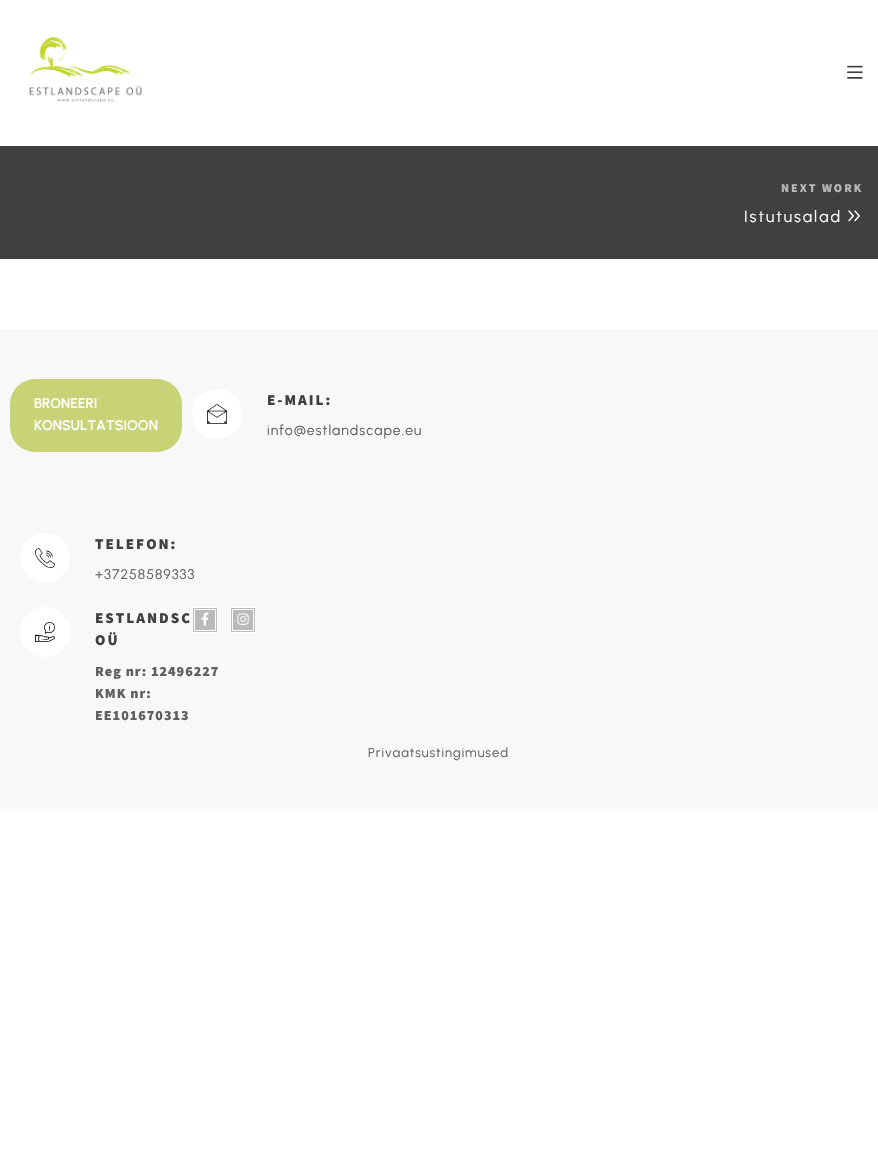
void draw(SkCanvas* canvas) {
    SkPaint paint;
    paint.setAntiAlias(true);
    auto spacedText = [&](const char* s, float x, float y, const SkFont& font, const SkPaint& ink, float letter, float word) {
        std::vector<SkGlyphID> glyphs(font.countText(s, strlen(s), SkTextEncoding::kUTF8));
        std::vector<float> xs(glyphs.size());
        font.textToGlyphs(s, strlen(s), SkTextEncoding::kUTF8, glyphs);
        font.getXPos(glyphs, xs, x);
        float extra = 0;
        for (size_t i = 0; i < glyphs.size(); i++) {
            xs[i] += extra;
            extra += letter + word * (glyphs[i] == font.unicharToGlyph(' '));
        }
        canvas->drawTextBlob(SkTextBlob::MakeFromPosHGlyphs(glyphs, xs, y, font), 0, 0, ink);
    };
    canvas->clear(0xFFFFFFFF);
    canvas->drawImageRect(SkImages::DeferredFromEncodedData(SkData::MakeFromFileName("img1.png")), SkRect::MakeXYWH(29, 36, 114, 67), SkSamplingOptions());
    canvas->drawImageRect(SkImages::DeferredFromEncodedData(SkData::MakeFromFileName("img2.png")), SkRect::MakeXYWH(847, 65, 16, 14), SkSamplingOptions());
    paint.setColor(0xFF404040);
    canvas->drawRect(SkRect::MakeXYWH(0, 146, 878, 113), paint);
    SkFont font1(fontMgr->matchFamilyStyle("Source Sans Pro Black", SkFontStyle(900, SkFontStyle::kNormal_Width, SkFontStyle::kUpright_Slant)), 12);
    font1.setSubpixel(true);
    paint.setColor(0xFFB8B7B7);
    spacedText("NEXT WORK", 781, 192, font1, paint, 2, 0);
    SkFont font2(fontMgr->matchFamilyStyle("Urbanist", SkFontStyle::Normal()), 16);
    font2.setSubpixel(true);
    paint.setColor(0xFFFFFFFF);
    spacedText("Istutusalad", 744, 222, font2, paint, 2, 0);
    canvas->drawImageRect(SkImages::DeferredFromEncodedData(SkData::MakeFromFileName("img3.png")), SkRect::MakeXYWH(848, 210, 12, 12), SkSamplingOptions());
    paint.setColor(0xFFF8F8F8);
    canvas->drawRect(SkRect::MakeXYWH(0, 329, 878, 480), paint);
    paint.setColor(0xFFC8D378);
    canvas->drawRoundRect(SkRect::MakeXYWH(10, 379, 172, 73), 25, 25, paint);
    SkFont font3(fontMgr->matchFamilyStyle("Urbanist", SkFontStyle(600, SkFontStyle::kNormal_Width, SkFontStyle::kUpright_Slant)), 14);
    font3.setSubpixel(true);
    paint.setColor(0xFFFFFFFF);
    canvas->drawString("BRONEERI", 34, 408, font3, paint);
    canvas->drawString("KONSULTATSIOON", 34, 430, font3, paint);
    canvas->drawRoundRect(SkRect::MakeXYWH(192, 389, 50, 50), 24, 24, paint);
    canvas->drawImageRect(SkImages::DeferredFromEncodedData(SkData::MakeFromFileName("img4.png")), SkRect::MakeXYWH(207, 404, 20, 20), SkSamplingOptions());
    SkFont font4(fontMgr->matchFamilyStyle("Source Sans Pro Black", SkFontStyle(900, SkFontStyle::kNormal_Width, SkFontStyle::kUpright_Slant)), 15);
    font4.setSubpixel(true);
    paint.setColor(0xFF404040);
    spacedText("E-MAIL:", 267, 405, font4, paint, 2, 0);
    SkFont font5(fontMgr->matchFamilyStyle("Urbanist", SkFontStyle::Normal()), 14);
    font5.setSubpixel(true);
    paint.setColor(0xFF606060);
    spacedText("info@estlandscape.eu", 267, 435, font5, paint, 1, 0);
    paint.setColor(0xFFFFFFFF);
    canvas->drawCircle(45, 558, 25, paint);
    canvas->drawImageRect(SkImages::DeferredFromEncodedData(SkData::MakeFromFileName("img5.png")), SkRect::MakeXYWH(35, 548, 20, 20), SkSamplingOptions());
    paint.setColor(0xFF404040);
    spacedText("TELEFON:", 95, 549, font4, paint, 2, 0);
    paint.setColor(0xFF606060);
    spacedText("+37258589333", 95, 579, font5, paint, 1, 0);
    paint.setColor(0xFFFFFFFF);
    canvas->drawCircle(45, 632, 25, paint);
    canvas->drawImageRect(SkImages::DeferredFromEncodedData(SkData::MakeFromFileName("img6.png")), SkRect::MakeXYWH(35, 622, 20, 20), SkSamplingOptions());
    paint.setColor(0xFF404040);
    spacedText("ESTLANDSC", 95, 623, font4, paint, 2, 0);
    spacedText("OÜ", 95, 645, font4, paint, 2, 0);
    SkFont font6(fontMgr->matchFamilyStyle("Source Sans Pro Black", SkFontStyle(900, SkFontStyle::kNormal_Width, SkFontStyle::kUpright_Slant)), 14);
    font6.setSubpixel(true);
    paint.setColor(0xFF606060);
    spacedText("Reg nr: 12496227", 95, 676, font6, paint, 1, 0);
    spacedText("KMK nr:", 95, 698, font6, paint, 1, 0);
    spacedText("EE101670313", 95, 720, font6, paint, 1, 0);
    paint.setColor(0xFFBABABA);
    canvas->drawRect(SkRect::MakeXYWH(192.5f, 607.5f, 25, 25), paint);
    paint.setStyle(SkPaint::kStroke_Style);
    paint.setStrokeWidth(1);
    paint.setColor(0xFFFFFFFF);
    canvas->drawRect(SkRect::MakeXYWH(192.5f, 607.5f, 25, 25), paint);
    canvas->drawRect(SkRect::MakeXYWH(194.5f, 609.5f, 21, 21), paint);
    canvas->drawImageRect(SkImages::DeferredFromEncodedData(SkData::MakeFromFileName("img7.png")), SkRect::MakeXYWH(201, 612, 8, 14), SkSamplingOptions());
    paint.setStyle(SkPaint::kFill_Style);
    paint.setColor(0xFFBABABA);
    canvas->drawRect(SkRect::MakeXYWH(230.5f, 607.5f, 25, 25), paint);
    paint.setStyle(SkPaint::kStroke_Style);
    paint.setColor(0xFFFFFFFF);
    canvas->drawRect(SkRect::MakeXYWH(230.5f, 607.5f, 25, 25), paint);
    canvas->drawRect(SkRect::MakeXYWH(232.5f, 609.5f, 21, 21), paint);
    canvas->drawImageRect(SkImages::DeferredFromEncodedData(SkData::MakeFromFileName("img8.png")), SkRect::MakeXYWH(237, 613, 12, 12), SkSamplingOptions());
    SkFont font7(fontMgr->matchFamilyStyle("Urbanist", SkFontStyle::Normal()), 13);
    font7.setSubpixel(true);
    paint.setStyle(SkPaint::kFill_Style);
    paint.setColor(0xFF606060);
    spacedText("Privaatsustingimused", 368, 757, font7, paint, 1, 0);
}
